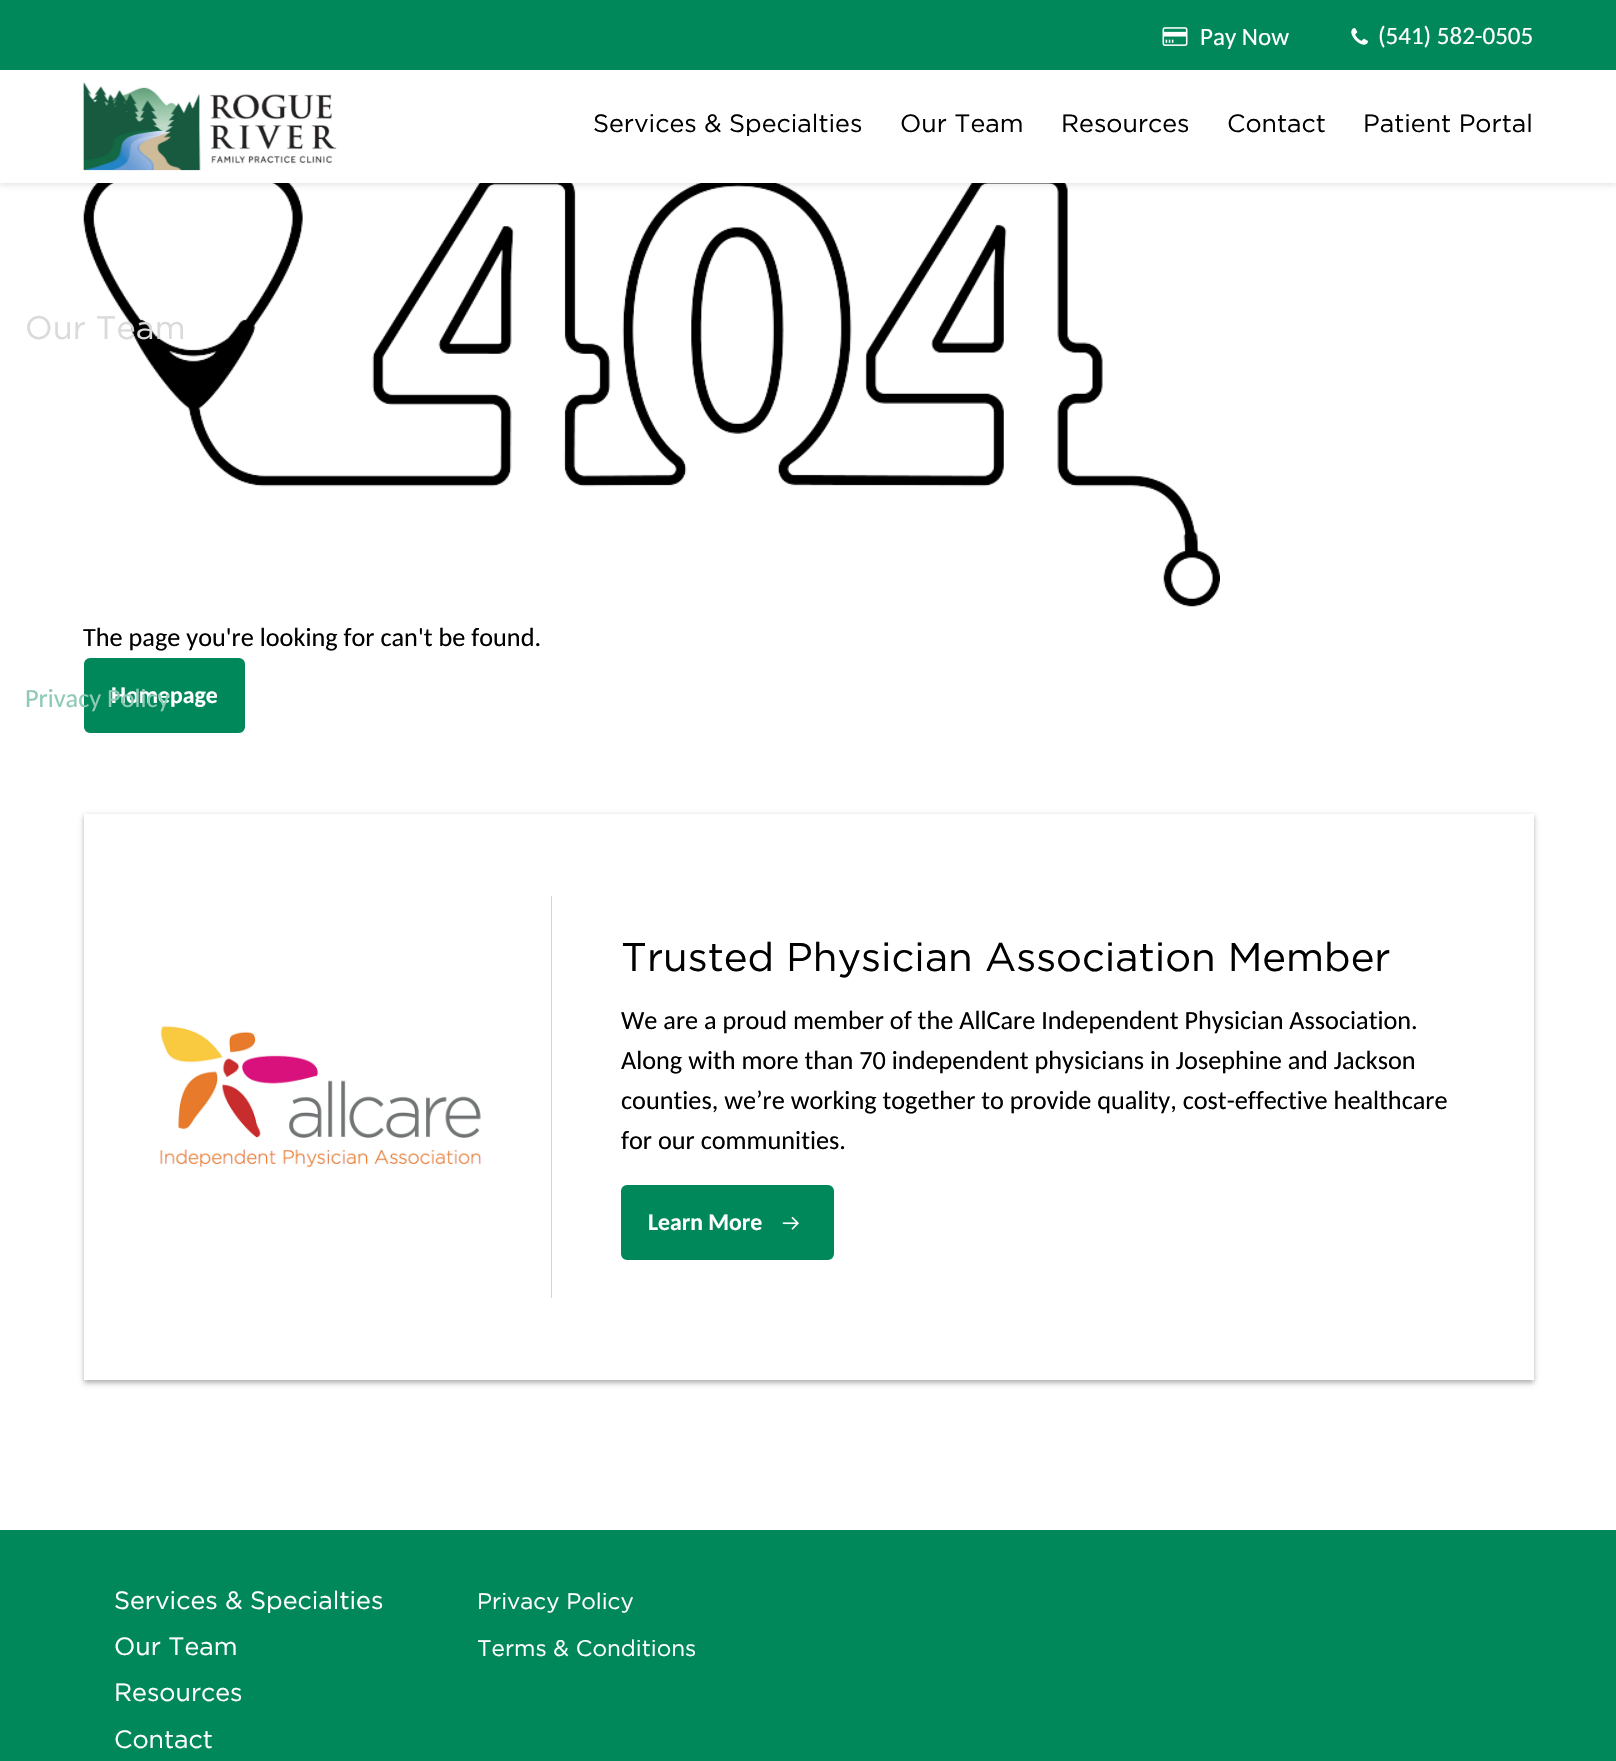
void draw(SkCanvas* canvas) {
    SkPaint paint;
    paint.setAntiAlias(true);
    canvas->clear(0xFFFFFFFF);
    canvas->drawImageRect(SkImages::DeferredFromEncodedData(SkData::MakeFromFileName("img4.png")), SkRect::MakeXYWH(83, 183, 1137, 424), SkSamplingOptions());
    paint.setColor(0x1A000000);
    paint.setMaskFilter(SkMaskFilter::MakeBlur(kNormal_SkBlurStyle, 2.5f));
    canvas->drawRect(SkRect::MakeXYWH(0, 3, 1616, 182), paint);
    paint.setMaskFilter(nullptr);
    paint.setColor(0xFFFFFFFF);
    canvas->drawRect(SkRect::MakeXYWH(0, 70, 1616, 113), paint);
    paint.setColor(0xFF00875A);
    canvas->drawRect(SkRect::MakeXYWH(0, 0, 1616, 70), paint);
    canvas->drawImageRect(SkImages::DeferredFromEncodedData(SkData::MakeFromFileName("img1.png")), SkRect::MakeXYWH(1162, 27, 26, 19), SkSamplingOptions());
    SkFont font1(fontMgr->matchFamilyStyle("Carlito", SkFontStyle::Normal()), 25);
    font1.setSubpixel(true);
    paint.setColor(0xFFFFFFFF);
    canvas->drawString("Pay Now", 1200, 45, font1, paint);
    canvas->drawImageRect(SkImages::DeferredFromEncodedData(SkData::MakeFromFileName("img2.png")), SkRect::MakeXYWH(1351, 28, 17, 17), SkSamplingOptions());
    canvas->drawString("(541) 582-0505", 1378, 44, font1, paint);
    canvas->drawImageRect(SkImages::DeferredFromEncodedData(SkData::MakeFromFileName("img3.png")), SkRect::MakeXYWH(83, 82, 254, 89), SkSamplingOptions());
    SkFont font2(fontMgr->matchFamilyStyle("Gotham", SkFontStyle::Normal()), 25);
    font2.setSubpixel(true);
    paint.setColor(0xFF000000);
    canvas->drawString("Services & Specialties", 593, 132, font2, paint);
    canvas->drawString("Our Team", 900, 132, font2, paint);
    canvas->drawString("Resources", 1061, 132, font2, paint);
    canvas->drawString("Contact", 1227, 132, font2, paint);
    canvas->drawString("Patient Portal", 1363, 132, font2, paint);
    SkFont font3(fontMgr->matchFamilyStyle("Gotham", SkFontStyle::Normal()), 32.5f);
    font3.setSubpixel(true);
    paint.setColor(0xFFDADADA);
    canvas->drawString("Our Team", 25, 339, font3, paint);
    paint.setColor(0xFF00875A);
    canvas->drawRoundRect(SkRect::MakeXYWH(85.5f, 659.5f, 158, 72), 4.5f, 4.5f, paint);
    paint.setStyle(SkPaint::kStroke_Style);
    paint.setStrokeWidth(3);
    canvas->drawRoundRect(SkRect::MakeXYWH(85.5f, 659.5f, 158, 72), 4.5f, 4.5f, paint);
    SkFont font4(fontMgr->matchFamilyStyle("Carlito", SkFontStyle::Bold()), 23.75f);
    font4.setSubpixel(true);
    paint.setStyle(SkPaint::kFill_Style);
    paint.setColor(0xFFFFFFFF);
    canvas->drawString("Homepage", 111, 703, font4, paint);
    SkFont font5(fontMgr->matchFamilyStyle("Carlito", SkFontStyle::Normal()), 26.25f);
    font5.setSubpixel(true);
    paint.setColor(0xFF8ECAB6);
    canvas->drawString("Privacy Policy", 25, 707, font5, paint);
    paint.setColor(0xFF000000);
    canvas->drawString("The page you're looking for can't be found.", 83, 646, font5, paint);
    paint.setColor(0x4D000000);
    paint.setMaskFilter(SkMaskFilter::MakeBlur(kNormal_SkBlurStyle, 2.5f));
    canvas->drawRect(SkRect::MakeXYWH(84, 816, 1450, 567), paint);
    paint.setMaskFilter(nullptr);
    paint.setColor(0xFFFFFFFF);
    canvas->drawRect(SkRect::MakeXYWH(84, 814, 1450, 566), paint);
    paint.setColor(0xFFD3D3D3);
    canvas->drawRect(SkRect::MakeXYWH(551, 896, 1, 402), paint);
    canvas->drawImageRect(SkImages::DeferredFromEncodedData(SkData::MakeFromFileName("img5.png")), SkRect::MakeXYWH(160, 1026, 321, 142), SkSamplingOptions());
    SkFont font6(fontMgr->matchFamilyStyle("Gotham", SkFontStyle::Normal()), 40);
    font6.setSubpixel(true);
    paint.setColor(0xFF000000);
    canvas->drawString("Trusted Physician Association Member", 621, 971, font6, paint);
    canvas->drawString("We are a proud member of the AllCare Independent Physician Association.", 621, 1029, font5, paint);
    canvas->drawString("Along with more than 70 independent physicians in Josephine and Jackson", 621, 1069, font5, paint);
    canvas->drawString("counties, we’re working together to provide quality, cost-effective healthcare", 621, 1109, font5, paint);
    canvas->drawString("for our communities.", 621, 1149, font5, paint);
    paint.setColor(0xFF00875A);
    canvas->drawRoundRect(SkRect::MakeXYWH(622.5f, 1186.5f, 210, 72), 4.5f, 4.5f, paint);
    paint.setStyle(SkPaint::kStroke_Style);
    canvas->drawRoundRect(SkRect::MakeXYWH(622.5f, 1186.5f, 210, 72), 4.5f, 4.5f, paint);
    paint.setStyle(SkPaint::kFill_Style);
    paint.setColor(0xFFFFFFFF);
    canvas->drawString("Learn More", 648, 1230, font4, paint);
    canvas->drawImageRect(SkImages::DeferredFromEncodedData(SkData::MakeFromFileName("img6.png")), SkRect::MakeXYWH(782, 1216, 17, 14), SkSamplingOptions());
    paint.setColor(0xFF00875A);
    canvas->drawRect(SkRect::MakeXYWH(0, 1530, 1616, 231), paint);
    paint.setColor(0xFFFFFFFF);
    canvas->drawString("Services & Specialties", 114, 1609, font2, paint);
    canvas->drawString("Our Team", 114, 1655, font2, paint);
    canvas->drawString("Resources", 114, 1701, font2, paint);
    canvas->drawString("Contact", 114, 1748, font2, paint);
    SkFont font7(fontMgr->matchFamilyStyle("Gotham", SkFontStyle::Normal()), 22.5f);
    font7.setSubpixel(true);
    canvas->drawString("Privacy Policy", 477, 1609, font7, paint);
    canvas->drawString("Terms & Conditions", 477, 1656, font7, paint);
}
